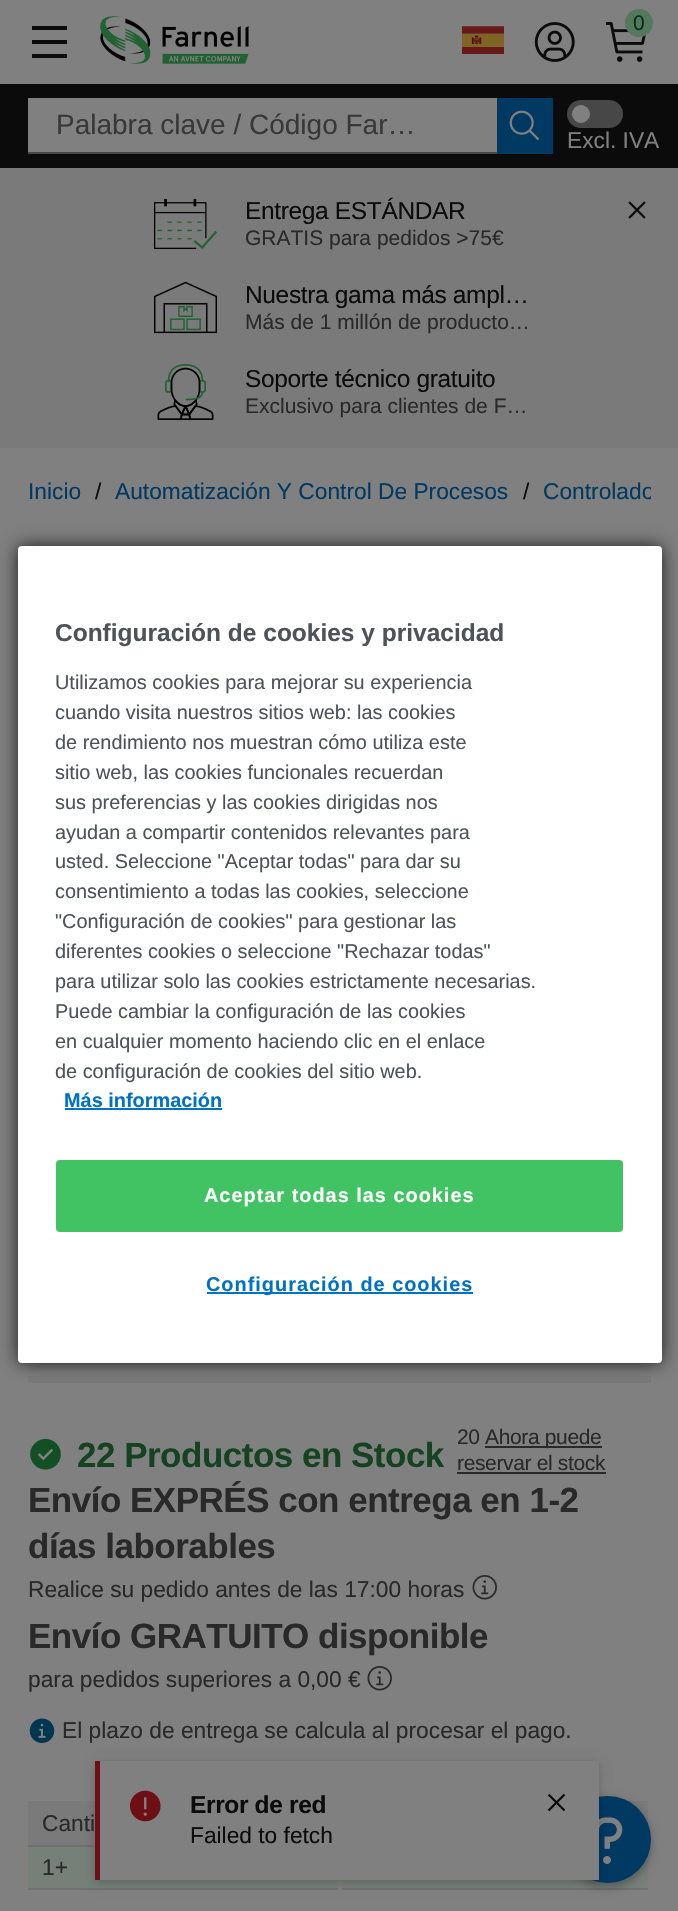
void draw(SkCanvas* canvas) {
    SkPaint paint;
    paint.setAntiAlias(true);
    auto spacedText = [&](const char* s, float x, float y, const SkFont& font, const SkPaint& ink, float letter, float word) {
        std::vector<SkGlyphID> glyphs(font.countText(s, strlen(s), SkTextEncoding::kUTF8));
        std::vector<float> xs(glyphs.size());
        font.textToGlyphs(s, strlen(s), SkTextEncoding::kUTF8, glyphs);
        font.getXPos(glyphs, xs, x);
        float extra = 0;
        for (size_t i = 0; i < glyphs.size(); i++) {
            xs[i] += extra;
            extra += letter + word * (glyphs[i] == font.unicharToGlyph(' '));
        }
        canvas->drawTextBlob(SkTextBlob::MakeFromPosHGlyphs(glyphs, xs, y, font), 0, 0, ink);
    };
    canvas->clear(0xFF808080);
    paint.setColor(0xFF0B0B0B);
    canvas->drawRect(SkRect::MakeXYWH(32, 26, 35, 4), paint);
    canvas->drawRect(SkRect::MakeXYWH(32, 40, 35, 4), paint);
    canvas->drawRect(SkRect::MakeXYWH(32, 54, 35, 4), paint);
    canvas->drawImageRect(SkImages::DeferredFromEncodedData(SkData::MakeFromFileName("img1.png")), SkRect::MakeXYWH(100, 16, 149, 48), SkSamplingOptions());
    canvas->drawImageRect(SkImages::DeferredFromEncodedData(SkData::MakeFromFileName("img2.png")), SkRect::MakeXYWH(462, 26, 42, 28), SkSamplingOptions());
    canvas->drawImageRect(SkImages::DeferredFromEncodedData(SkData::MakeFromFileName("img3.png")), SkRect::MakeXYWH(534, 22, 41, 40), SkSamplingOptions());
    canvas->drawImageRect(SkImages::DeferredFromEncodedData(SkData::MakeFromFileName("img4.png")), SkRect::MakeXYWH(606, 22, 40, 40), SkSamplingOptions());
    paint.setColor(0xFF54785D);
    canvas->drawCircle(639, 23, 14, paint);
    SkFont font1(fontMgr->matchFamilyStyle("Liberation Sans", SkFontStyle::Normal()), 21);
    font1.setSubpixel(true);
    paint.setColor(0xFF073014);
    canvas->drawString("0", 633, 30, font1, paint);
    paint.setColor(0xFF0B0B0B);
    canvas->drawRect(SkRect::MakeXYWH(0, 84, 678, 84), paint);
    paint.setColor(0xFF808080);
    canvas->drawRect(SkRect::MakeXYWH(28, 98, 469, 54), paint);
    paint.setColor(0xFF474747);
    canvas->drawRect(SkRect::MakeXYWH(28, 152, 469, 2), paint);
    SkFont font2(fontMgr->matchFamilyStyle("Liberation Sans", SkFontStyle::Normal()), 28);
    font2.setSubpixel(true);
    paint.setColor(0xFF383838);
    canvas->drawString("Palabra clave / Código Far…", 56, 134, font2, paint);
    paint.setColor(0xFF003962);
    canvas->drawRect(SkRect::MakeXYWH(497, 98, 56, 56), paint);
    canvas->drawImageRect(SkImages::DeferredFromEncodedData(SkData::MakeFromFileName("img5.png")), SkRect::MakeXYWH(509, 110, 31, 31), SkSamplingOptions());
    paint.setColor(0xFF474747);
    canvas->drawRoundRect(SkRect::MakeXYWH(567, 100, 56, 28), 14, 14, paint);
    paint.setColor(0xFF808080);
    canvas->drawCircle(581, 114, 9, paint);
    SkFont font3(fontMgr->matchFamilyStyle("Liberation Sans", SkFontStyle::Normal()), 22.75f);
    font3.setSubpixel(true);
    canvas->drawString("Excl. IVA", 567, 148, font3, paint);
    paint.setColor(0xFF7A7A7A);
    canvas->drawRect(SkRect::MakeXYWH(0, 168, 678, 280), paint);
    canvas->drawImageRect(SkImages::DeferredFromEncodedData(SkData::MakeFromFileName("img6.png")), SkRect::MakeXYWH(154, 198, 63, 51), SkSamplingOptions());
    SkFont font4(fontMgr->matchFamilyStyle("Liberation Sans", SkFontStyle::Normal()), 24.5f);
    font4.setSubpixel(true);
    paint.setColor(0xFF0B0B0B);
    spacedText("Entrega ESTÁNDAR", 245, 219, font4, paint, -0.35f, 0);
    paint.setColor(0xFF292929);
    canvas->drawString("GRATIS para pedidos >75€", 245, 245, font1, paint);
    canvas->drawImageRect(SkImages::DeferredFromEncodedData(SkData::MakeFromFileName("img7.png")), SkRect::MakeXYWH(154, 281, 63, 53), SkSamplingOptions());
    paint.setColor(0xFF0B0B0B);
    spacedText("Nuestra gama más ampl…", 245, 303, font4, paint, -0.35f, 0);
    paint.setColor(0xFF292929);
    canvas->drawString("Más de 1 millón de producto…", 245, 329, font1, paint);
    canvas->drawImageRect(SkImages::DeferredFromEncodedData(SkData::MakeFromFileName("img8.png")), SkRect::MakeXYWH(157, 364, 57, 56), SkSamplingOptions());
    paint.setColor(0xFF0B0B0B);
    spacedText("Soporte técnico gratuito", 245, 387, font4, paint, -0.35f, 0);
    paint.setColor(0xFF292929);
    canvas->drawString("Exclusivo para clientes de F…", 245, 413, font1, paint);
    canvas->drawImageRect(SkImages::DeferredFromEncodedData(SkData::MakeFromFileName("img9.png")), SkRect::MakeXYWH(628, 201, 18, 18), SkSamplingOptions());
    paint.setColor(0xFF003962);
    canvas->drawString("Inicio", 28, 499, font3, paint);
    paint.setColor(0xFF0B0B0B);
    canvas->drawString("/", 95, 499, font3, paint);
    paint.setColor(0xFF003962);
    canvas->drawString("Automatización Y Control De Procesos", 115, 499, font3, paint);
    paint.setColor(0xFF0B0B0B);
    canvas->drawString("/", 523, 499, font3, paint);
    canvas->save();
    canvas->clipRect(SkRect::MakeXYWH(28, 476, 623, 53));
    paint.setColor(0xFF003962);
    canvas->drawString("Controlado", 543, 499, font3, paint);
    canvas->restore();
    paint.setColor(0xFF7A7A7A);
    canvas->drawRect(SkRect::MakeXYWH(28, 1376, 623, 7), paint);
    canvas->drawImageRect(SkImages::DeferredFromEncodedData(SkData::MakeFromFileName("img10.png")), SkRect::MakeXYWH(30, 1438, 31, 32), SkSamplingOptions());
    SkFont font5(fontMgr->matchFamilyStyle("Liberation Sans", SkFontStyle::Bold()), 35);
    font5.setSubpixel(true);
    paint.setColor(0xFF154221);
    spacedText("22 Productos en Stock", 77, 1467, font5, paint, -0.5f, 0);
    paint.setColor(0xFF292929);
    spacedText("20", 457, 1444, font1, paint, -0.35f, 0);
    canvas->drawRect(SkRect::MakeXYWH(485, 1446, 117, 2), paint);
    spacedText("Ahora puede", 485, 1444, font1, paint, -0.35f, 0);
    spacedText("reservar el stock", 457, 1470, font1, paint, -0.35f, 0);
    canvas->drawRect(SkRect::MakeXYWH(457, 1472, 149, 2), paint);
    spacedText("Envío EXPRÉS con entrega en 1-2", 28, 1512, font5, paint, -0.5f, 0);
    spacedText("días laborables", 28, 1558, font5, paint, -0.5f, 0);
    canvas->drawString("Realice su pedido antes de las 17:00 horas", 28, 1597, font3, paint);
    canvas->drawImageRect(SkImages::DeferredFromEncodedData(SkData::MakeFromFileName("img11.png")), SkRect::MakeXYWH(472, 1575, 25, 25), SkSamplingOptions());
    spacedText("Envío GRATUITO disponible", 28, 1648, font5, paint, -0.5f, 0);
    canvas->drawString("para pedidos superiores a 0,00 €", 28, 1687, font3, paint);
    canvas->drawImageRect(SkImages::DeferredFromEncodedData(SkData::MakeFromFileName("img11.png")), SkRect::MakeXYWH(367, 1666, 25, 25), SkSamplingOptions());
    canvas->drawImageRect(SkImages::DeferredFromEncodedData(SkData::MakeFromFileName("img12.png")), SkRect::MakeXYWH(29, 1718, 26, 25), SkSamplingOptions());
    canvas->drawString("El plazo de entrega se calcula al procesar el pago.", 62, 1738, font3, paint);
    paint.setColor(0xFF7A7A7A);
    canvas->drawRect(SkRect::MakeXYWH(28, 1801, 67, 44), paint);
    paint.setColor(0xFF707070);
    canvas->drawRect(SkRect::MakeXYWH(28, 1845, 67, 2), paint);
    paint.setColor(0xFF292929);
    canvas->drawString("Canti", 42, 1831, font3, paint);
    paint.setColor(0xFF7A7A7A);
    canvas->drawRect(SkRect::MakeXYWH(631, 1803, 17, 21), paint);
    canvas->drawRect(SkRect::MakeXYWH(627, 1801, 24, 2), paint);
    paint.setColor(0xFF808080);
    canvas->drawRect(SkRect::MakeXYWH(648, 1801, 3, 2), paint);
    paint.setColor(0xFF777F79);
    canvas->drawRect(SkRect::MakeXYWH(342, 1855, 306, 33), paint);
    paint.setColor(0xFF707070);
    canvas->drawRect(SkRect::MakeXYWH(28, 1888, 623, 2), paint);
    paint.setColor(0xFF777F79);
    canvas->drawRect(SkRect::MakeXYWH(28, 1847, 310, 41), paint);
    paint.setColor(0xFF292929);
    canvas->drawString("1+", 42, 1875, font3, paint);
    paint.setColor(0xFF808080);
    canvas->drawRect(SkRect::MakeXYWH(338, 1888, 4, 2), paint);
    canvas->drawRect(SkRect::MakeXYWH(648, 1888, 3, 2), paint);
    paint.setColor(0x4D000000);
    paint.setMaskFilter(SkMaskFilter::MakeBlur(kNormal_SkBlurStyle, 5));
    canvas->drawRoundRect(SkRect::MakeXYWH(564, 1799, 87, 88), 43.5f, 43.5f, paint);
    paint.setMaskFilter(nullptr);
    paint.setColor(0xFF003962);
    canvas->drawCircle(607.5f, 1839.5f, 43.5f, paint);
    canvas->drawImageRect(SkImages::DeferredFromEncodedData(SkData::MakeFromFileName("img15.png")), SkRect::MakeXYWH(599, 1817, 24, 47), SkSamplingOptions());
    paint.setColor(0x33000000);
    paint.setMaskFilter(SkMaskFilter::MakeBlur(kNormal_SkBlurStyle, 5));
    canvas->drawRect(SkRect::MakeXYWH(95, 1764, 504, 119), paint);
    paint.setMaskFilter(nullptr);
    paint.setColor(0xFF808080);
    canvas->drawRect(SkRect::MakeXYWH(100, 1761, 499, 119), paint);
    paint.setColor(0xFF6D0F14);
    canvas->drawRect(SkRect::MakeXYWH(95, 1761, 5, 119), paint);
    canvas->drawImageRect(SkImages::DeferredFromEncodedData(SkData::MakeFromFileName("img13.png")), SkRect::MakeXYWH(129, 1790, 32, 32), SkSamplingOptions());
    SkFont font6(fontMgr->matchFamilyStyle("Liberation Sans", SkFontStyle::Bold()), 24.5f);
    font6.setSubpixel(true);
    paint.setColor(0xFF0B0B0B);
    spacedText("Error de red", 190, 1813, font6, paint, -0.35f, 0);
    canvas->drawString("Failed to fetch", 190, 1843, font3, paint);
    canvas->drawImageRect(SkImages::DeferredFromEncodedData(SkData::MakeFromFileName("img14.png")), SkRect::MakeXYWH(547, 1793, 19, 19), SkSamplingOptions());
    paint.setColor(0xCC000000);
    paint.setMaskFilter(SkMaskFilter::MakeBlur(kNormal_SkBlurStyle, 9));
    canvas->drawRoundRect(SkRect::MakeXYWH(18, 546, 644, 817), 4, 4, paint);
    paint.setMaskFilter(nullptr);
    paint.setColor(0xFFFFFFFF);
    canvas->drawRoundRect(SkRect::MakeXYWH(18, 546, 644, 817), 4, 4, paint);
    paint.setColor(0xFF4D5358);
    canvas->drawString("Configuración de cookies y privacidad", 55, 641, font6, paint);
    SkFont font7(fontMgr->matchFamilyStyle("Liberation Sans", SkFontStyle::Normal()), 19.9f);
    font7.setSubpixel(true);
    canvas->drawString("Utilizamos cookies para mejorar su experiencia", 55, 689, font7, paint);
    canvas->drawString("cuando visita nuestros sitios web: las cookies", 55, 719, font7, paint);
    canvas->drawString("de rendimiento nos muestran cómo utiliza este", 55, 749, font7, paint);
    canvas->drawString("sitio web, las cookies funcionales recuerdan", 55, 779, font7, paint);
    canvas->drawString("sus preferencias y las cookies dirigidas nos", 55, 809, font7, paint);
    canvas->drawString("ayudan a compartir contenidos relevantes para", 55, 839, font7, paint);
    canvas->drawString("usted. Seleccione \"Aceptar todas\" para dar su", 55, 868, font7, paint);
    canvas->drawString("consentimiento a todas las cookies, seleccione", 55, 898, font7, paint);
    canvas->drawString("\"Configuración de cookies\" para gestionar las", 55, 928, font7, paint);
    canvas->drawString("diferentes cookies o seleccione \"Rechazar todas\"", 55, 958, font7, paint);
    canvas->drawString("para utilizar solo las cookies estrictamente necesarias.", 55, 988, font7, paint);
    canvas->drawString("Puede cambiar la configuración de las cookies", 55, 1018, font7, paint);
    canvas->drawString("en cualquier momento haciendo clic en el enlace", 55, 1048, font7, paint);
    canvas->drawString("de configuración de cookies del sitio web.", 55, 1078, font7, paint);
    SkFont font8(fontMgr->matchFamilyStyle("Liberation Sans", SkFontStyle::Bold()), 19.9f);
    font8.setSubpixel(true);
    paint.setColor(0xFF0072C3);
    canvas->drawString("Más información", 64, 1107, font8, paint);
    canvas->drawRect(SkRect::MakeXYWH(65, 1108, 157, 2), paint);
    paint.setColor(0xFF41C363);
    canvas->drawRoundRect(SkRect::MakeXYWH(57, 1161, 565, 70), 3, 3, paint);
    paint.setStyle(SkPaint::kStroke_Style);
    paint.setStrokeWidth(2);
    canvas->drawRoundRect(SkRect::MakeXYWH(57, 1161, 565, 70), 3, 3, paint);
    paint.setStyle(SkPaint::kFill_Style);
    paint.setColor(0xFFFFFFFF);
    spacedText("Aceptar todas las cookies", 204, 1202, font8, paint, 1, 0);
    paint.setColor(0xFF0072C3);
    canvas->drawRect(SkRect::MakeXYWH(207, 1292, 266, 2), paint);
    spacedText("Configuración de cookies", 206, 1291, font8, paint, 1, 0);
}
